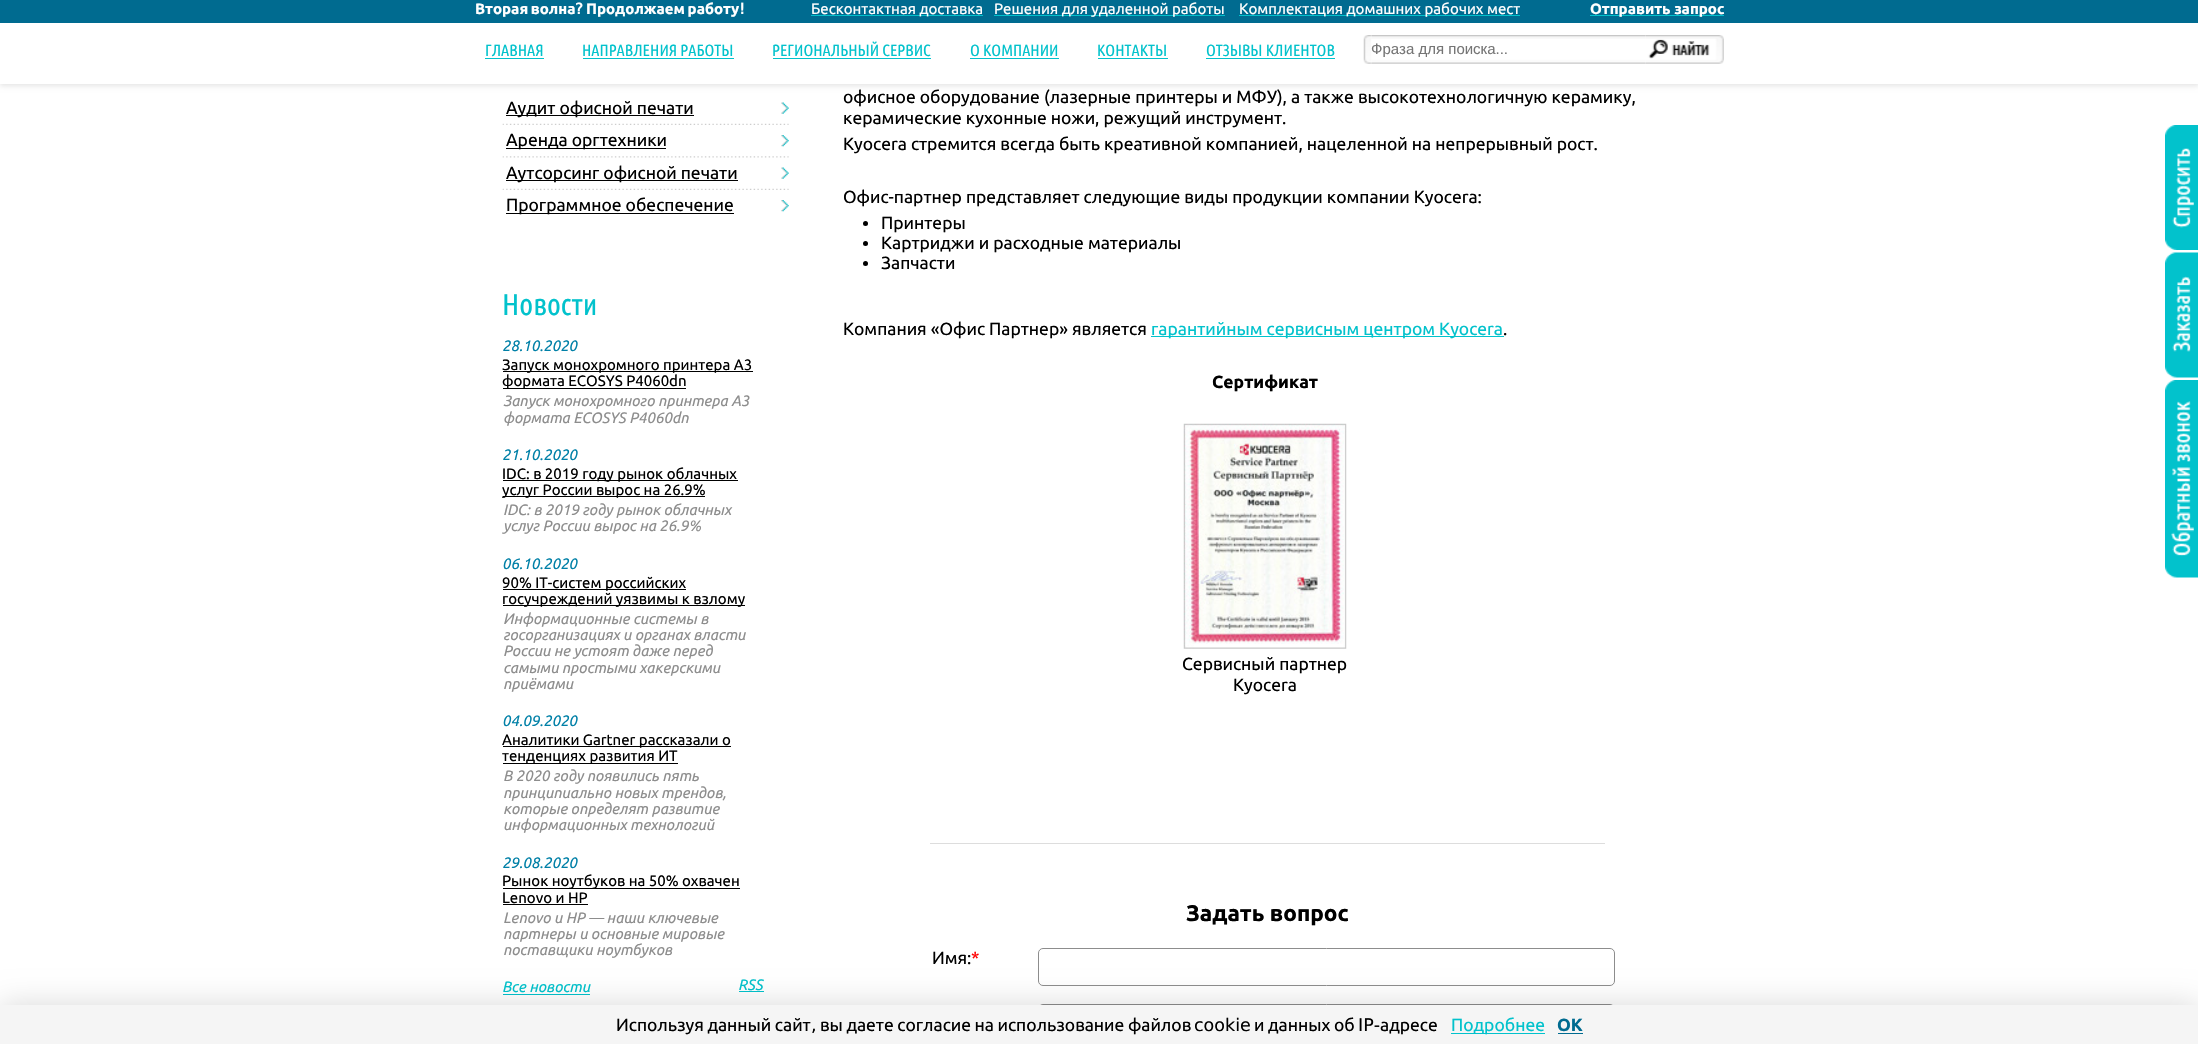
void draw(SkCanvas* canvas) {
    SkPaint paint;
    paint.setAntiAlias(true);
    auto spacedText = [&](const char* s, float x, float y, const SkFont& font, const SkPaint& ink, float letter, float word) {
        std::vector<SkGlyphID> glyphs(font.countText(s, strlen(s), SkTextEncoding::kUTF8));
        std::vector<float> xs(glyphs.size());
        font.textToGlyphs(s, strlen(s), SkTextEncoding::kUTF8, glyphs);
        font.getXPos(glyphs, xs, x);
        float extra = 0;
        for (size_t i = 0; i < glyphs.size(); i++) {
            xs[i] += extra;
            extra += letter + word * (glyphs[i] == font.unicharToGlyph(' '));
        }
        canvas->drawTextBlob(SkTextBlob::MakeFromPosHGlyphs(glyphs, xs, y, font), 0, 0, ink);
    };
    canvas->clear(0xFFFFFFFF);
    paint.setColor(0x1A000000);
    paint.setMaskFilter(SkMaskFilter::MakeBlur(kNormal_SkBlurStyle, 2.5f));
    canvas->drawRect(SkRect::MakeXYWH(0, 13, 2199, 73), paint);
    paint.setMaskFilter(nullptr);
    paint.setColor(0xFF006B90);
    canvas->drawRect(SkRect::MakeXYWH(0, 0, 2198, 23), paint);
    SkFont font1(fontMgr->matchFamilyStyle("Ubuntu", SkFontStyle::Bold()), 15);
    font1.setSubpixel(true);
    paint.setColor(0xFFFFFFFF);
    spacedText("Вторая волна", 475, 14, font1, paint, 0, -1);
    SkFont font2(fontMgr->matchFamilyStyle("DejaVu Sans", SkFontStyle::Bold()), 15);
    font2.setSubpixel(true);
    canvas->drawString("?", 575, 14, font2, paint);
    spacedText("Продолжаем работу", 586, 14, font1, paint, 0, -1);
    canvas->drawString("!⠀⠀⠀⠀", 739, 14, font2, paint);
    paint.setColor(0xFF02C2CC);
    canvas->drawRect(SkRect::MakeXYWH(811, 15, 172, 1), paint);
    SkFont font3(fontMgr->matchFamilyStyle("Ubuntu", SkFontStyle::Normal()), 15);
    font3.setSubpixel(true);
    paint.setColor(0xFFFFFFFF);
    canvas->drawString("Бесконтактная доставка", 811, 14, font3, paint);
    paint.setColor(0xFF02C2CC);
    canvas->drawRect(SkRect::MakeXYWH(994, 15, 231, 1), paint);
    paint.setColor(0xFFFFFFFF);
    canvas->drawString("Решения для удаленной работы", 994, 14, font3, paint);
    paint.setColor(0xFF02C2CC);
    canvas->drawRect(SkRect::MakeXYWH(1239, 15, 281, 1), paint);
    paint.setColor(0xFFFFFFFF);
    canvas->drawString("Комплектация домашних рабочих мест", 1239, 14, font3, paint);
    paint.setColor(0xFF02C2CC);
    canvas->drawRect(SkRect::MakeXYWH(1590, 15, 134, 1), paint);
    paint.setColor(0xFFFFFFFF);
    canvas->drawString("Отправить запрос", 1590, 14, font1, paint);
    canvas->drawRect(SkRect::MakeXYWH(0, 23, 2198, 61), paint);
    SkFont font4(fontMgr->matchFamilyStyle("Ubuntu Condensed", SkFontStyle::Normal()), 16.25f);
    font4.setSubpixel(true);
    paint.setColor(0xFF02C2CC);
    canvas->drawString("ГЛАВНАЯ", 485, 56, font4, paint);
    canvas->drawRect(SkRect::MakeXYWH(485, 58, 59, 1), paint);
    canvas->drawString("НАПРАВЛЕНИЯ РАБОТЫ", 582, 56, font4, paint);
    canvas->drawRect(SkRect::MakeXYWH(583, 58, 151, 1), paint);
    canvas->drawString("РЕГИОНАЛЬНЫЙ СЕРВИС", 772, 56, font4, paint);
    canvas->drawRect(SkRect::MakeXYWH(773, 58, 158, 1), paint);
    canvas->drawString("О КОМПАНИИ", 970, 56, font4, paint);
    canvas->drawRect(SkRect::MakeXYWH(970, 58, 89, 1), paint);
    canvas->drawString("КОНТАКТЫ", 1097, 56, font4, paint);
    canvas->drawRect(SkRect::MakeXYWH(1098, 58, 70, 1), paint);
    canvas->drawString("ОТЗЫВЫ КЛИЕНТОВ", 1206, 56, font4, paint);
    canvas->drawRect(SkRect::MakeXYWH(1206, 58, 129, 1), paint);
    canvas->drawImageRect(SkImages::DeferredFromEncodedData(SkData::MakeFromFileName("img1.png")), SkRect::MakeXYWH(1363, 35, 9, 29), SkSamplingOptions());
    canvas->drawImageRect(SkImages::DeferredFromEncodedData(SkData::MakeFromFileName("img2.png")), SkRect::MakeXYWH(1371, 35, 274, 29), SkSamplingOptions());
    SkFont font5(fontMgr->matchFamilyStyle("Liberation Sans", SkFontStyle::Normal()), 15);
    font5.setSubpixel(true);
    paint.setColor(0xFF757575);
    canvas->drawString("Фраза для поиска...", 1371, 54, font5, paint);
    canvas->drawImageRect(SkImages::DeferredFromEncodedData(SkData::MakeFromFileName("img3.png")), SkRect::MakeXYWH(1645, 35, 79, 29), SkSamplingOptions());
    canvas->drawImageRect(SkImages::DeferredFromEncodedData(SkData::MakeFromFileName("img4.png")), SkRect::MakeXYWH(502, 123, 287, 2), SkSamplingOptions());
    canvas->drawImageRect(SkImages::DeferredFromEncodedData(SkData::MakeFromFileName("img5.png")), SkRect::MakeXYWH(781, 102, 8, 12), SkSamplingOptions());
    paint.setColor(0xFF000000);
    canvas->drawRect(SkRect::MakeXYWH(506, 115, 188, 1), paint);
    SkFont font6(fontMgr->matchFamilyStyle("Ubuntu", SkFontStyle::Normal()), 17.5f);
    font6.setSubpixel(true);
    canvas->drawString("Аудит офисной печати", 506, 114, font6, paint);
    canvas->drawImageRect(SkImages::DeferredFromEncodedData(SkData::MakeFromFileName("img6.png")), SkRect::MakeXYWH(502, 156, 287, 2), SkSamplingOptions());
    canvas->drawImageRect(SkImages::DeferredFromEncodedData(SkData::MakeFromFileName("img7.png")), SkRect::MakeXYWH(781, 135, 8, 12), SkSamplingOptions());
    canvas->drawRect(SkRect::MakeXYWH(506, 148, 160, 1), paint);
    canvas->drawString("Аренда оргтехники", 506, 146, font6, paint);
    canvas->drawImageRect(SkImages::DeferredFromEncodedData(SkData::MakeFromFileName("img4.png")), SkRect::MakeXYWH(502, 188, 287, 2), SkSamplingOptions());
    canvas->drawImageRect(SkImages::DeferredFromEncodedData(SkData::MakeFromFileName("img5.png")), SkRect::MakeXYWH(781, 167, 8, 12), SkSamplingOptions());
    canvas->drawRect(SkRect::MakeXYWH(506, 180, 232, 1), paint);
    canvas->drawString("Аутсорсинг офисной печати", 506, 179, font6, paint);
    canvas->drawImageRect(SkImages::DeferredFromEncodedData(SkData::MakeFromFileName("img7.png")), SkRect::MakeXYWH(781, 200, 8, 12), SkSamplingOptions());
    canvas->drawRect(SkRect::MakeXYWH(506, 213, 228, 1), paint);
    canvas->drawString("Программное обеспечение", 506, 211, font6, paint);
    SkFont font7(fontMgr->matchFamilyStyle("Ubuntu Condensed", SkFontStyle::Normal()), 30);
    font7.setSubpixel(true);
    paint.setColor(0xFF02C2CC);
    canvas->drawString("Новости", 502, 315, font7, paint);
    SkFont font8(fontMgr->matchFamilyStyle("Ubuntu", SkFontStyle::Italic()), 15);
    font8.setSubpixel(true);
    paint.setColor(0xFF0080A7);
    canvas->drawString("28.10.2020", 502, 351, font8, paint);
    paint.setColor(0xFF000000);
    canvas->drawRect(SkRect::MakeXYWH(503, 371, 250, 1), paint);
    canvas->drawString("Запуск монохромного принтера А3", 502, 370, font3, paint);
    canvas->drawRect(SkRect::MakeXYWH(503, 388, 183, 1), paint);
    canvas->drawString("формата ECOSYS P4060dn", 502, 386, font3, paint);
    paint.setColor(0xFF8D8D8D);
    canvas->drawString("Запуск монохромного принтера А3", 503, 406, font8, paint);
    canvas->drawString("формата ECOSYS P4060dn", 503, 423, font8, paint);
    paint.setColor(0xFF0080A7);
    canvas->drawString("21.10.2020", 502, 460, font8, paint);
    paint.setColor(0xFF000000);
    canvas->drawRect(SkRect::MakeXYWH(503, 480, 235, 1), paint);
    canvas->drawString("IDC: в 2019 году рынок облачных", 502, 479, font3, paint);
    canvas->drawRect(SkRect::MakeXYWH(503, 496, 202, 1), paint);
    canvas->drawString("услуг России вырос на 26.9%", 502, 495, font3, paint);
    paint.setColor(0xFF8D8D8D);
    canvas->drawString("IDC: в 2019 году рынок облачных", 503, 515, font8, paint);
    canvas->drawString("услуг России вырос на 26.9%", 503, 531, font8, paint);
    paint.setColor(0xFF0080A7);
    canvas->drawString("06.10.2020", 502, 569, font8, paint);
    paint.setColor(0xFF000000);
    canvas->drawRect(SkRect::MakeXYWH(503, 589, 183, 1), paint);
    canvas->drawString("90% IT-систем российских", 502, 588, font3, paint);
    canvas->drawRect(SkRect::MakeXYWH(503, 605, 242, 1), paint);
    canvas->drawString("госучреждений уязвимы к взлому", 502, 604, font3, paint);
    paint.setColor(0xFF8D8D8D);
    canvas->drawString("Информационные системы в", 503, 624, font8, paint);
    canvas->drawString("госорганизациях и органах власти", 503, 640, font8, paint);
    canvas->drawString("России не устоят даже перед", 503, 656, font8, paint);
    canvas->drawString("самыми простыми хакерскими", 503, 673, font8, paint);
    canvas->drawString("приёмами", 503, 689, font8, paint);
    paint.setColor(0xFF0080A7);
    canvas->drawString("04.09.2020", 502, 726, font8, paint);
    paint.setColor(0xFF000000);
    canvas->drawRect(SkRect::MakeXYWH(503, 746, 228, 1), paint);
    canvas->drawString("Аналитики Gartner рассказали о", 502, 745, font3, paint);
    canvas->drawRect(SkRect::MakeXYWH(503, 763, 175, 1), paint);
    canvas->drawString("тенденциях развития ИТ", 502, 761, font3, paint);
    paint.setColor(0xFF8D8D8D);
    canvas->drawString("В 2020 году появились пять", 503, 781, font8, paint);
    canvas->drawString("принципиально новых трендов,", 503, 798, font8, paint);
    canvas->drawString("которые определят развитие", 503, 814, font8, paint);
    canvas->drawString("информационных технологий", 503, 830, font8, paint);
    paint.setColor(0xFF0080A7);
    canvas->drawString("29.08.2020", 502, 868, font8, paint);
    paint.setColor(0xFF000000);
    canvas->drawRect(SkRect::MakeXYWH(503, 888, 237, 1), paint);
    canvas->drawString("Рынок ноутбуков на 50% охвачен", 502, 886, font3, paint);
    canvas->drawString("Lenovo и HP", 502, 903, font3, paint);
    canvas->drawRect(SkRect::MakeXYWH(503, 904, 85, 1), paint);
    paint.setColor(0xFF8D8D8D);
    canvas->drawString("Lenovo и HP — наши ключевые", 503, 923, font8, paint);
    canvas->drawString("партнеры и основные мировые", 503, 939, font8, paint);
    canvas->drawString("поставщики ноутбуков", 503, 955, font8, paint);
    paint.setColor(0xFF02C2CC);
    canvas->drawString("Все новости", 502, 992, font8, paint);
    canvas->drawRect(SkRect::MakeXYWH(503, 994, 87, 1), paint);
    canvas->drawString("RSS", 738, 990, font8, paint);
    canvas->drawRect(SkRect::MakeXYWH(739, 991, 25, 1), paint);
    paint.setColor(0xFF000000);
    canvas->drawString("офисное оборудование (лазерные принтеры и МФУ), а также высокотехнологичную керамику,", 843, 103, font6, paint);
    canvas->drawString("керамические кухонные ножи, режущий инструмент.", 843, 124, font6, paint);
    canvas->drawString("Kyocera стремится всегда быть креативной компанией, нацеленной на непрерывный рост.", 843, 150, font6, paint);
    canvas->drawString("Офис-партнер представляет следующие виды продукции компании Kyocera:", 843, 203, font6, paint);
    canvas->drawCircle(865.5f, 223.5f, 2.5f, paint);
    canvas->drawString("Принтеры", 881, 229, font6, paint);
    canvas->drawCircle(865.5f, 243.5f, 2.5f, paint);
    canvas->drawString("Картриджи и расходные материалы", 881, 249, font6, paint);
    canvas->drawCircle(865.5f, 263.5f, 2.5f, paint);
    canvas->drawString("Запчасти", 881, 269, font6, paint);
    canvas->drawString("Компания «Офис Партнер» является", 843, 335, font6, paint);
    paint.setColor(0xFF02C2CC);
    canvas->drawRect(SkRect::MakeXYWH(1151, 336, 353, 1), paint);
    canvas->drawString("гарантийным сервисным центром Kyocera", 1151, 335, font6, paint);
    paint.setColor(0xFF000000);
    canvas->drawString(".", 1503, 335, font6, paint);
    SkFont font9(fontMgr->matchFamilyStyle("Ubuntu", SkFontStyle::Bold()), 17.5f);
    font9.setSubpixel(true);
    canvas->drawString("Сертификат", 1212, 388, font9, paint);
    canvas->drawImageRect(SkImages::DeferredFromEncodedData(SkData::MakeFromFileName("img8.png")), SkRect::MakeXYWH(1183, 423, 164, 226), SkSamplingOptions());
    canvas->drawString("Cервисный партнер", 1182, 670, font6, paint);
    canvas->drawString("Kyocera", 1233, 691, font6, paint);
    paint.setColor(0xFFDDDDDD);
    canvas->drawRect(SkRect::MakeXYWH(930, 843, 675, 1), paint);
    SkFont font10(fontMgr->matchFamilyStyle("Ubuntu", SkFontStyle::Bold()), 22.5f);
    font10.setSubpixel(true);
    paint.setColor(0xFF000000);
    canvas->drawString("Задать вопрос", 1186, 921, font10, paint);
    canvas->drawString("Имя:", 932, 964, font6, paint);
    paint.setColor(0xFFFF0000);
    canvas->drawString("*", 971, 964, font6, paint);
    paint.setStyle(SkPaint::kStroke_Style);
    paint.setStrokeWidth(1);
    paint.setColor(0xFF8D8D8D);
    canvas->drawRoundRect(SkRect::MakeXYWH(1038.5f, 948.5f, 576, 37), 4.5f, 4.5f, paint);
    canvas->drawRoundRect(SkRect::MakeXYWH(1038.5f, 1004.5f, 576, 38), 4.5f, 4.5f, paint);
    canvas->drawImageRect(SkImages::DeferredFromEncodedData(SkData::MakeFromFileName("img9.png")), SkRect::MakeXYWH(2165, 125, 33, 125), SkSamplingOptions());
    canvas->drawImageRect(SkImages::DeferredFromEncodedData(SkData::MakeFromFileName("img10.png")), SkRect::MakeXYWH(2165, 252, 33, 126), SkSamplingOptions());
    canvas->drawImageRect(SkImages::DeferredFromEncodedData(SkData::MakeFromFileName("img11.png")), SkRect::MakeXYWH(2165, 380, 33, 198), SkSamplingOptions());
    paint.setStyle(SkPaint::kFill_Style);
    paint.setColor(0x26000000);
    paint.setMaskFilter(SkMaskFilter::MakeBlur(kNormal_SkBlurStyle, 15.5f));
    canvas->drawRect(SkRect::MakeXYWH(0, 1005, 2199, 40), paint);
    paint.setMaskFilter(nullptr);
    paint.setColor(0xFFF5F5F5);
    canvas->drawRect(SkRect::MakeXYWH(0, 1005, 2198, 39), paint);
    paint.setColor(0xFF000000);
    spacedText("Используя данный сайт", 616, 1031, font6, paint, 0, -0.5f);
    SkFont font11(fontMgr->matchFamilyStyle("DejaVu Sans", SkFontStyle::Normal()), 17.5f);
    font11.setSubpixel(true);
    canvas->drawString(",", 811, 1031, font11, paint);
    spacedText("вы даете согласие на использование файлов", 820, 1031, font6, paint, 0, -0.5f);
    canvas->drawString("cookie", 1194, 1031, font11, paint);
    spacedText("и данных об", 1254, 1031, font6, paint, 0, -0.5f);
    canvas->drawString("IP-", 1358, 1031, font11, paint);
    canvas->drawString("адресе", 1380, 1031, font6, paint);
    paint.setColor(0xFF02C2CC);
    canvas->drawRect(SkRect::MakeXYWH(1451, 1033, 94, 1), paint);
    canvas->drawString("Подробнее", 1451, 1031, font6, paint);
    paint.setColor(0xFF006B90);
    canvas->drawString("ОК", 1557, 1031, font9, paint);
    canvas->drawRect(SkRect::MakeXYWH(1558, 1033, 25, 1), paint);
}
